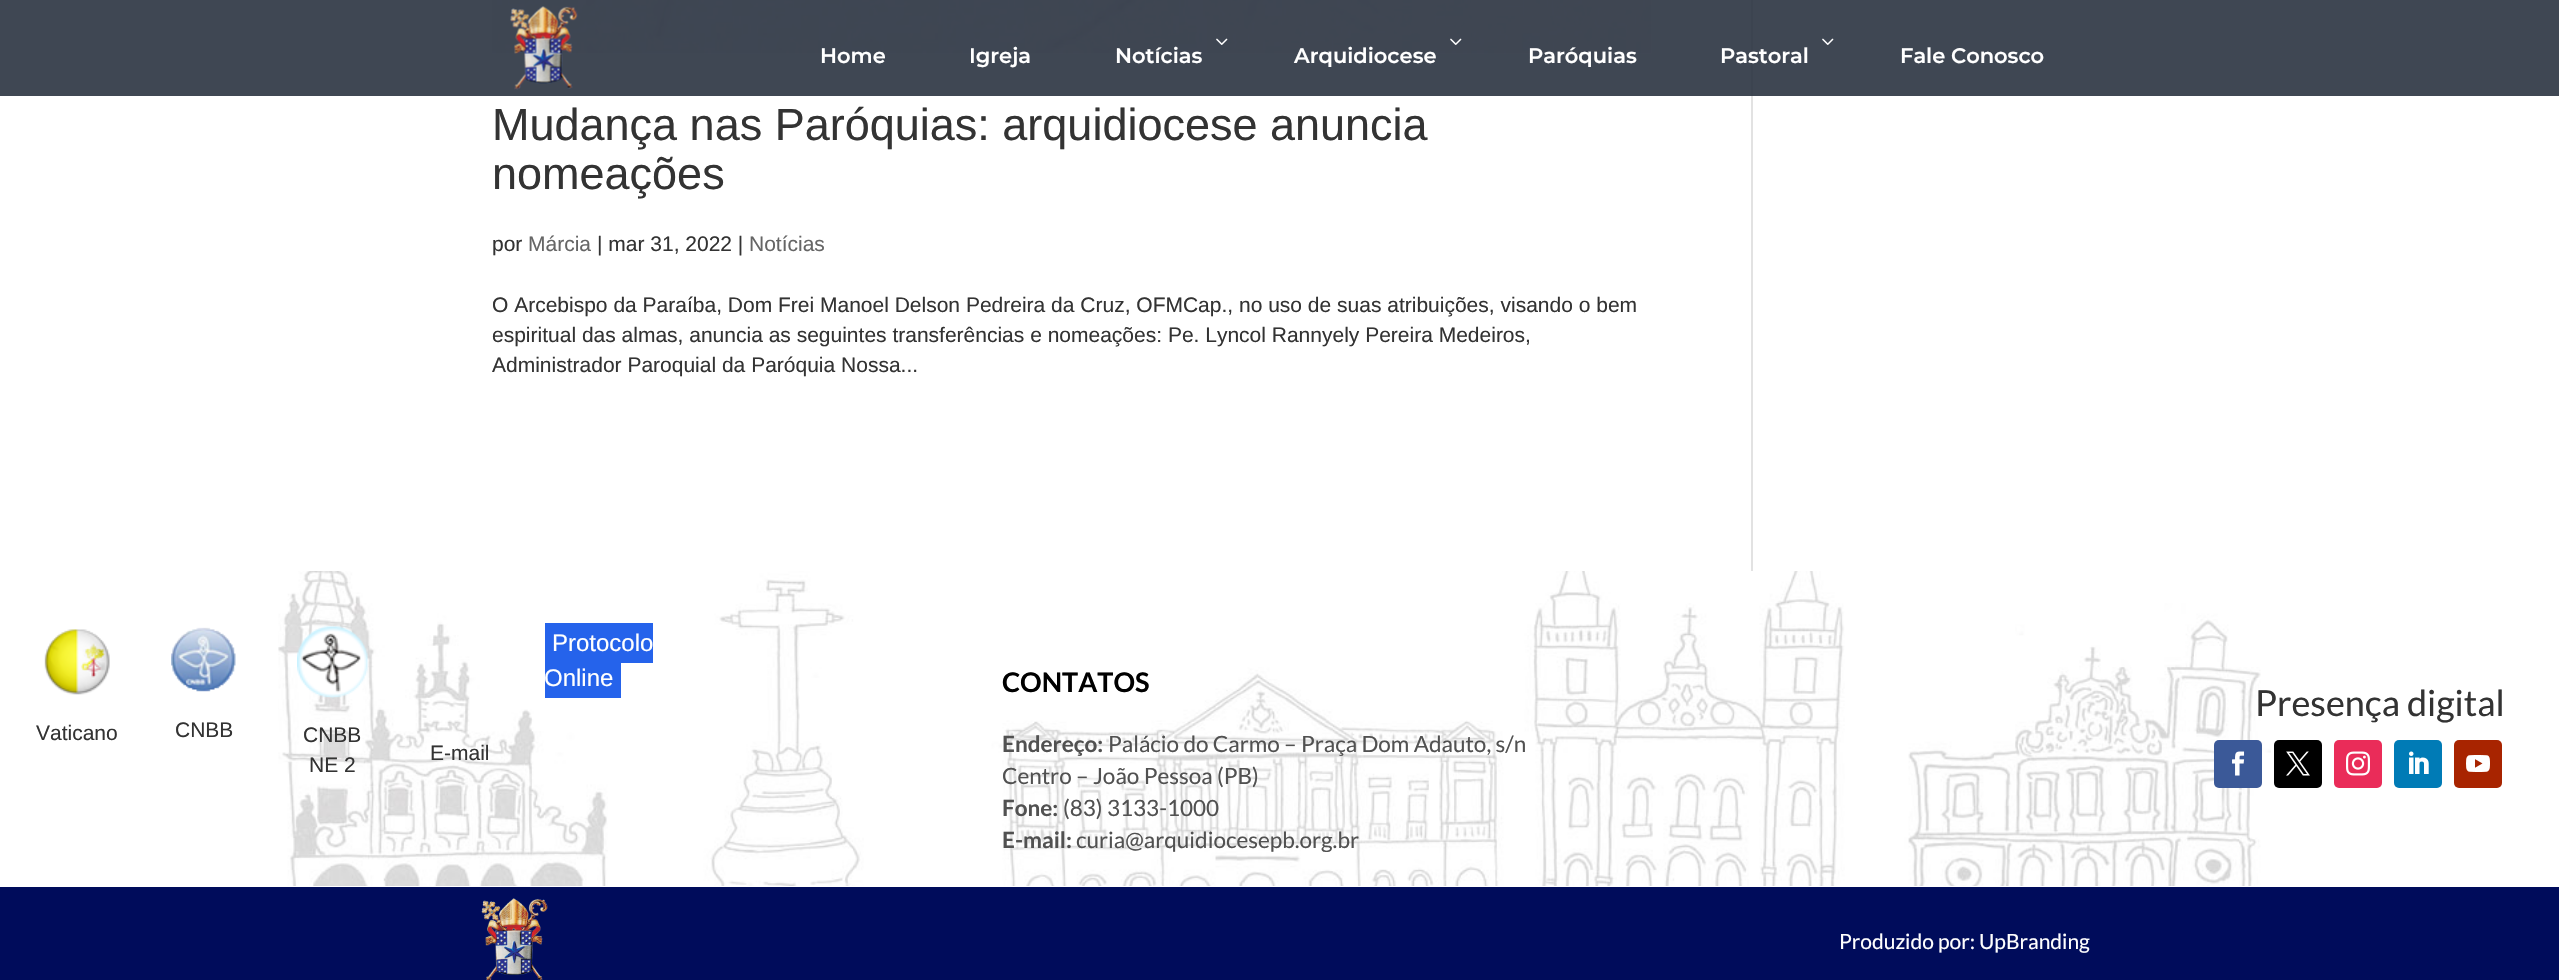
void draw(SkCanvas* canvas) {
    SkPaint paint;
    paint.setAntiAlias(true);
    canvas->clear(0xFFFFFFFF);
    paint.setColor(0xFF3F4753);
    canvas->drawRect(SkRect::MakeXYWH(0, 0, 2559, 96), paint);
    canvas->drawImageRect(SkImages::DeferredFromEncodedData(SkData::MakeFromFileName("img5.png")), SkRect::MakeXYWH(492, 0, 1160, 54), SkSamplingOptions());
    canvas->drawImageRect(SkImages::DeferredFromEncodedData(SkData::MakeFromFileName("img1.png")), SkRect::MakeXYWH(510, 6, 68, 84), SkSamplingOptions());
    SkFont font1(fontMgr->matchFamilyStyle("Montserrat", SkFontStyle(100, SkFontStyle::kNormal_Width, SkFontStyle::kUpright_Slant)), 21);
    font1.setSubpixel(true);
    paint.setColor(0xFFFFFFFF);
    canvas->drawString("Home", 820, 63, font1, paint);
    canvas->drawString("Igreja", 969, 63, font1, paint);
    canvas->drawImageRect(SkImages::DeferredFromEncodedData(SkData::MakeFromFileName("img2.png")), SkRect::MakeXYWH(1216, 38, 12, 7), SkSamplingOptions());
    canvas->drawString("Notícias", 1115, 63, font1, paint);
    canvas->drawImageRect(SkImages::DeferredFromEncodedData(SkData::MakeFromFileName("img3.png")), SkRect::MakeXYWH(1450, 38, 12, 7), SkSamplingOptions());
    canvas->drawString("Arquidiocese", 1294, 63, font1, paint);
    canvas->drawString("Paróquias", 1528, 63, font1, paint);
    canvas->drawImageRect(SkImages::DeferredFromEncodedData(SkData::MakeFromFileName("img4.png")), SkRect::MakeXYWH(1822, 38, 12, 7), SkSamplingOptions());
    paint.setColor(0xFF3C4450);
    canvas->drawRect(SkRect::MakeXYWH(1751, 0, 2, 96), paint);
    paint.setColor(0xFFFFFFFF);
    canvas->drawString("Pastoral", 1720, 63, font1, paint);
    canvas->drawString("Fale Conosco", 1900, 63, font1, paint);
    SkFont font2(fontMgr->matchFamilyStyle("Liberation Sans", SkFontStyle::Normal()), 45);
    font2.setSubpixel(true);
    paint.setColor(0xFF333333);
    canvas->drawString("Mudança nas Paróquias: arquidiocese anuncia", 492, 140, font2, paint);
    canvas->drawString("nomeações", 492, 189, font2, paint);
    SkFont font3(fontMgr->matchFamilyStyle("Liberation Sans", SkFontStyle::Normal()), 21);
    font3.setSubpixel(true);
    canvas->drawString("por", 492, 251, font3, paint);
    paint.setColor(0xFF666666);
    canvas->drawString("Márcia", 528, 251, font3, paint);
    paint.setColor(0xFF333333);
    canvas->drawString("| mar 31, 2022 |", 597, 251, font3, paint);
    paint.setColor(0xFF666666);
    canvas->drawString("Notícias", 749, 251, font3, paint);
    paint.setColor(0xFF333333);
    canvas->drawString("O Arcebispo da Paraíba, Dom Frei Manoel Delson Pedreira da Cruz, OFMCap., no uso de suas atribuições, visando o bem", 492, 312, font3, paint);
    canvas->drawString("espiritual das almas, anuncia as seguintes transferências e nomeações: Pe. Lyncol Rannyely Pereira Medeiros,", 492, 342, font3, paint);
    canvas->drawString("Administrador Paroquial da Paróquia Nossa...", 492, 372, font3, paint);
    paint.setColor(0xFFE2E2E2);
    canvas->drawRect(SkRect::MakeXYWH(1751, 96, 2, 476), paint);
    canvas->drawImageRect(SkImages::DeferredFromEncodedData(SkData::MakeFromFileName("img6.png")), SkRect::MakeXYWH(278, 571, 1993, 315), SkSamplingOptions());
    paint.setColor(0xFF2563EB);
    canvas->drawRect(SkRect::MakeXYWH(545, 623, 108, 40), paint);
    SkFont font4(fontMgr->matchFamilyStyle("Liberation Sans", SkFontStyle::Normal()), 24);
    font4.setSubpixel(true);
    paint.setColor(0xFFFFFFFF);
    canvas->drawString("Protocolo", 552, 651, font4, paint);
    paint.setColor(0xFF2563EB);
    canvas->drawRect(SkRect::MakeXYWH(545, 663, 76, 35), paint);
    paint.setColor(0xFFFFFFFF);
    canvas->drawString("Online", 544, 686, font4, paint);
    canvas->drawImageRect(SkImages::DeferredFromEncodedData(SkData::MakeFromFileName("img7.png")), SkRect::MakeXYWH(44, 629, 66, 66), SkSamplingOptions());
    paint.setColor(0xFF333333);
    canvas->drawString("Vaticano", 36, 740, font3, paint);
    canvas->drawImageRect(SkImages::DeferredFromEncodedData(SkData::MakeFromFileName("img8.png")), SkRect::MakeXYWH(171, 627, 65, 65), SkSamplingOptions());
    canvas->drawString("CNBB", 175, 737, font3, paint);
    canvas->drawImageRect(SkImages::DeferredFromEncodedData(SkData::MakeFromFileName("img9.png")), SkRect::MakeXYWH(297, 626, 71, 73), SkSamplingOptions());
    canvas->drawString("CNBB", 303, 742, font3, paint);
    canvas->drawString("NE 2", 309, 772, font3, paint);
    canvas->drawString("E-mail", 430, 760, font3, paint);
    SkFont font5(fontMgr->matchFamilyStyle("Lato", SkFontStyle::Bold()), 27);
    font5.setSubpixel(true);
    paint.setColor(0xFF000000);
    canvas->drawString("CONTATOS", 1002, 692, font5, paint);
    SkFont font6(fontMgr->matchFamilyStyle("Lato", SkFontStyle::Bold()), 22.5f);
    font6.setSubpixel(true);
    paint.setColor(0xFF515151);
    canvas->drawString("Endereço:", 1002, 752, font6, paint);
    SkFont font7(fontMgr->matchFamilyStyle("Lato", SkFontStyle::Normal()), 22.5f);
    font7.setSubpixel(true);
    canvas->drawString("Palácio do Carmo – Praça Dom Adauto, s/n", 1108, 752, font7, paint);
    canvas->drawString("Centro – João Pessoa (PB)", 1002, 784, font7, paint);
    canvas->drawString("Fone:", 1002, 816, font6, paint);
    canvas->drawString("(83) 3133-1000", 1063, 816, font7, paint);
    canvas->drawString("E-mail:", 1002, 848, font6, paint);
    canvas->drawString("curia@arquidiocesepb.org.br", 1076, 848, font7, paint);
    SkFont font8(fontMgr->matchFamilyStyle("Lato", SkFontStyle::Normal()), 36);
    font8.setSubpixel(true);
    paint.setColor(0xFF333333);
    canvas->drawString("Presença digital", 2255, 716, font8, paint);
    paint.setColor(0xFF3B5998);
    canvas->drawRoundRect(SkRect::MakeXYWH(2214, 740, 48, 48), 5, 5, paint);
    canvas->drawImageRect(SkImages::DeferredFromEncodedData(SkData::MakeFromFileName("img10.png")), SkRect::MakeXYWH(2232, 751, 13, 25), SkSamplingOptions());
    paint.setColor(0xFF000000);
    canvas->drawRoundRect(SkRect::MakeXYWH(2274, 740, 48, 48), 5, 5, paint);
    canvas->drawImageRect(SkImages::DeferredFromEncodedData(SkData::MakeFromFileName("img11.png")), SkRect::MakeXYWH(2286, 751, 24, 25), SkSamplingOptions());
    paint.setColor(0xFFEA2C59);
    canvas->drawRoundRect(SkRect::MakeXYWH(2334, 740, 48, 48), 5, 5, paint);
    canvas->drawImageRect(SkImages::DeferredFromEncodedData(SkData::MakeFromFileName("img12.png")), SkRect::MakeXYWH(2346, 751, 24, 25), SkSamplingOptions());
    paint.setColor(0xFF007BB6);
    canvas->drawRoundRect(SkRect::MakeXYWH(2394, 740, 48, 48), 5, 5, paint);
    canvas->drawImageRect(SkImages::DeferredFromEncodedData(SkData::MakeFromFileName("img13.png")), SkRect::MakeXYWH(2409, 751, 20, 23), SkSamplingOptions());
    paint.setColor(0xFFA82400);
    canvas->drawRoundRect(SkRect::MakeXYWH(2454, 740, 48, 48), 5, 5, paint);
    canvas->drawImageRect(SkImages::DeferredFromEncodedData(SkData::MakeFromFileName("img14.png")), SkRect::MakeXYWH(2466, 755, 24, 17), SkSamplingOptions());
    paint.setColor(0xFF000C5B);
    canvas->drawRect(SkRect::MakeXYWH(0, 887, 2559, 93), paint);
    canvas->drawImageRect(SkImages::DeferredFromEncodedData(SkData::MakeFromFileName("img15.png")), SkRect::MakeXYWH(481, 898, 67, 82), SkSamplingOptions());
    SkFont font9(fontMgr->matchFamilyStyle("Lato", SkFontStyle::Normal()), 21);
    font9.setSubpixel(true);
    paint.setColor(0xFFFFFFFF);
    canvas->drawString("Produzido por: UpBranding", 1839, 949, font9, paint);
}
